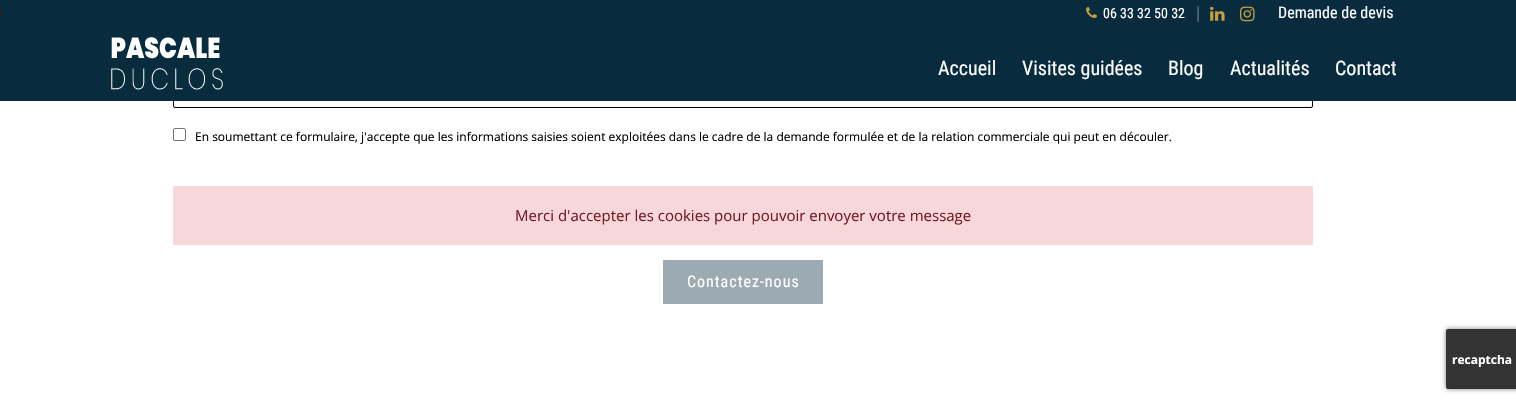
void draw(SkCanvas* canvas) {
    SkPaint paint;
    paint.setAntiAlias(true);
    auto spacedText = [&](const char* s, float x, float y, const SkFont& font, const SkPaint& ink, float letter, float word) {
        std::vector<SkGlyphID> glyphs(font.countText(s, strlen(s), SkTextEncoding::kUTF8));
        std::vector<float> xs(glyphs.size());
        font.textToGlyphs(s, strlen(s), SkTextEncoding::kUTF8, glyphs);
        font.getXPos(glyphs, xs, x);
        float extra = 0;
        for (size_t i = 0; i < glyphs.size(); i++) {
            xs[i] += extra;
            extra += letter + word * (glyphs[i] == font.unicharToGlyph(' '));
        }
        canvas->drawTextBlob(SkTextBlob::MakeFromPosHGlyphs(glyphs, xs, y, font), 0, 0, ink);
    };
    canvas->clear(0xFFFFFFFF);
    paint.setStyle(SkPaint::kStroke_Style);
    paint.setStrokeWidth(1);
    paint.setColor(0xFF000000);
    canvas->drawRoundRect(SkRect::MakeXYWH(173.5f, -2.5f, 1139, 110), 1.5f, 1.5f, paint);
    paint.setStyle(SkPaint::kFill_Style);
    paint.setColor(0xFF082C3E);
    canvas->drawRect(SkRect::MakeXYWH(0, 0, 1516, 101), paint);
    paint.setColor(0xFF3D1628);
    canvas->drawRect(SkRect::MakeXYWH(0, 7, 1, 9), paint);
    canvas->drawImageRect(SkImages::DeferredFromEncodedData(SkData::MakeFromFileName("img1.png")), SkRect::MakeXYWH(1086, 7, 11, 11), SkSamplingOptions());
    SkFont font1(fontMgr->matchFamilyStyle("Roboto Condensed", SkFontStyle::Normal()), 14);
    font1.setSubpixel(true);
    paint.setColor(0xFFFFFFFF);
    canvas->drawString("06 33 32 50 32", 1103, 18, font1, paint);
    SkFont font2(fontMgr->matchFamilyStyle("Open Sans", SkFontStyle::Normal()), 15);
    font2.setSubpixel(true);
    paint.setColor(0xFF6B808B);
    canvas->drawString("|", 1194, 18, font2, paint);
    canvas->drawImageRect(SkImages::DeferredFromEncodedData(SkData::MakeFromFileName("img2.png")), SkRect::MakeXYWH(1210, 6, 15, 15), SkSamplingOptions());
    canvas->drawImageRect(SkImages::DeferredFromEncodedData(SkData::MakeFromFileName("img3.png")), SkRect::MakeXYWH(1240, 6, 15, 16), SkSamplingOptions());
    SkFont font3(fontMgr->matchFamilyStyle("Roboto Condensed", SkFontStyle::Normal()), 16);
    font3.setSubpixel(true);
    paint.setColor(0xFFFFFFFF);
    canvas->drawString("Demande de devis", 1278, 18, font3, paint);
    canvas->drawImageRect(SkImages::DeferredFromEncodedData(SkData::MakeFromFileName("img4.png")), SkRect::MakeXYWH(111, 37, 112, 53), SkSamplingOptions());
    SkFont font4(fontMgr->matchFamilyStyle("Roboto Condensed", SkFontStyle::Normal()), 20);
    font4.setSubpixel(true);
    canvas->drawString("Accueil", 938, 75, font4, paint);
    canvas->drawString("Visites guidées", 1022, 75, font4, paint);
    canvas->drawString("Blog", 1168, 75, font4, paint);
    canvas->drawString("Actualités", 1230, 75, font4, paint);
    canvas->drawString("Contact", 1335, 75, font4, paint);
    paint.setStyle(SkPaint::kStroke_Style);
    paint.setColor(0xFF767676);
    canvas->drawRoundRect(SkRect::MakeXYWH(173.5f, 128.5f, 12, 12), 1.5f, 1.5f, paint);
    SkFont font5(fontMgr->matchFamilyStyle("Open Sans", SkFontStyle::Normal()), 12);
    font5.setSubpixel(true);
    paint.setStyle(SkPaint::kFill_Style);
    paint.setColor(0xFF000000);
    canvas->drawString("En soumettant ce formulaire, j'accepte que les informations saisies soient exploitées dans le cadre de la demande formulée et de la relation commerciale qui peut en découler.", 195, 141, font5, paint);
    paint.setColor(0xFFF8D7DA);
    canvas->drawRect(SkRect::MakeXYWH(173, 186, 1140, 59), paint);
    paint.setColor(0xFF721C24);
    canvas->drawString("Merci d'accepter les cookies pour pouvoir envoyer votre message", 515, 221, font2, paint);
    paint.setColor(0xFF9CABB2);
    canvas->drawRect(SkRect::MakeXYWH(663, 260, 160, 44), paint);
    paint.setColor(0xFFFFFFFF);
    spacedText("Contactez-nous", 687, 287, font3, paint, 1, 0);
    paint.setColor(0xFF808080);
    paint.setMaskFilter(SkMaskFilter::MakeBlur(kNormal_SkBlurStyle, 2.5f));
    canvas->drawRoundRect(SkRect::MakeXYWH(1446, 329, 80, 60), 2, 2, paint);
    paint.setMaskFilter(nullptr);
    paint.setColor(0xFF333333);
    canvas->drawRoundRect(SkRect::MakeXYWH(1446, 329, 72, 60), 2, 2, paint);
    SkFont font6(fontMgr->matchFamilyStyle("Open Sans", SkFontStyle::Bold()), 12);
    font6.setSubpixel(true);
    paint.setColor(0xFFFFFFFF);
    canvas->drawString("recaptcha", 1452, 364, font6, paint);
}
